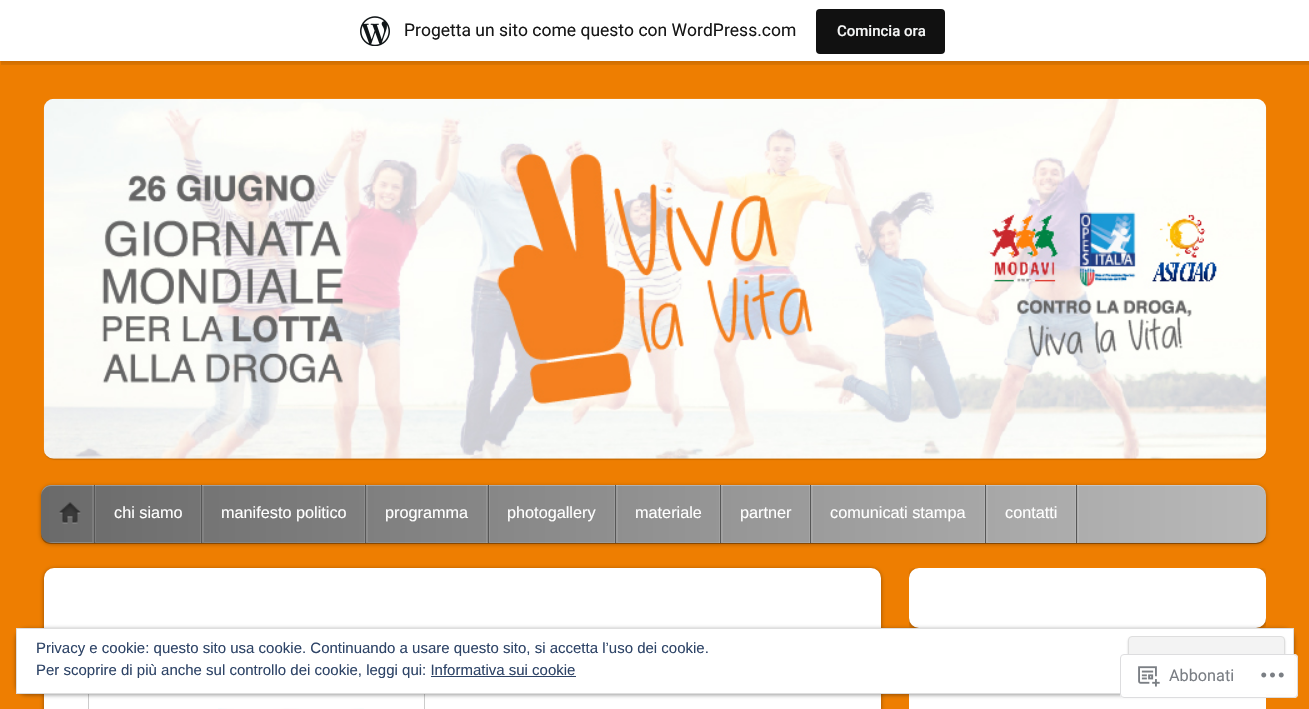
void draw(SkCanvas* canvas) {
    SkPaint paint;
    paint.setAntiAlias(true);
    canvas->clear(0xFFEE7E01);
    paint.setColor(0x0D000000);
    paint.setMaskFilter(SkMaskFilter::MakeBlur(kNormal_SkBlurStyle, 1));
    canvas->drawRect(SkRect::MakeXYWH(0, 1, 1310, 62), paint);
    paint.setMaskFilter(nullptr);
    paint.setColor(0x14000000);
    canvas->drawPath(SkPathBuilder().moveTo(1, 61).lineTo(1, 65).lineTo(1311, 65).lineTo(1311, 4).lineTo(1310, 4).lineTo(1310, 61).close().detach(), paint);
    paint.setColor(0xFFFFFFFF);
    canvas->drawRect(SkRect::MakeXYWH(0, 0, 1309, 61), paint);
    canvas->drawImageRect(SkImages::DeferredFromEncodedData(SkData::MakeFromFileName("img1.png")), SkRect::MakeXYWH(360, 16, 30, 30), SkSamplingOptions());
    SkFont font1(fontMgr->matchFamilyStyle("Roboto", SkFontStyle::Normal()), 17.5f);
    font1.setSubpixel(true);
    paint.setColor(0xFF171717);
    canvas->drawString("Progetta un sito come questo con WordPress.com", 404, 36, font1, paint);
    paint.setColor(0xFF111111);
    canvas->drawRoundRect(SkRect::MakeXYWH(816, 9, 129, 45), 4, 4, paint);
    SkFont font2(fontMgr->matchFamilyStyle("Roboto", SkFontStyle(500, SkFontStyle::kNormal_Width, SkFontStyle::kUpright_Slant)), 15);
    font2.setSubpixel(true);
    paint.setColor(0xFFF6F7F7);
    canvas->drawString("Comincia ora", 837, 36, font2, paint);
    paint.setColor(0x26000000);
    paint.setMaskFilter(SkMaskFilter::MakeBlur(kNormal_SkBlurStyle, 0.5f));
    canvas->drawRoundRect(SkRect::MakeXYWH(44, 100, 1222, 360), 10, 10, paint);
    paint.setMaskFilter(nullptr);
    canvas->drawImageRect(SkImages::DeferredFromEncodedData(SkData::MakeFromFileName("img2.png")), SkRect::MakeXYWH(43, 98, 1224, 361), SkSamplingOptions());
    paint.setColor(0x4D000000);
    paint.setMaskFilter(SkMaskFilter::MakeBlur(kNormal_SkBlurStyle, 2));
    canvas->drawRoundRect(SkRect::MakeXYWH(41, 486, 1225, 58), 10, 10, paint);
    paint.setMaskFilter(nullptr);
    canvas->drawPath(SkPathBuilder().moveTo(41, 493).lineTo(41, 496).lineTo(41, 534).cubicTo(41, 540, 45, 544, 51, 544).lineTo(1256, 544).cubicTo(1261, 544, 1266, 540, 1266, 535).cubicTo(1265, 539, 1261, 542, 1256, 542).lineTo(51, 542).cubicTo(46, 542, 41, 538, 41, 532).close().detach(), paint);
    {
        const SkColor colors[] = {0xFFB9B9B9, 0xFF6A6A6A};
        const float stops[] = {0, 1};
        const SkPoint ends[] = {{1266, 514}, {41, 514}};
        paint.setShader(SkGradientShader::MakeLinear(ends, colors, stops, 2, SkTileMode::kClamp));
        paint.setAlpha(255);
    }
    canvas->drawRoundRect(SkRect::MakeXYWH(41, 485, 1225, 58), 10, 10, paint);
    paint.setShader(nullptr);
    paint.setColor(0x4DFFFFFF);
    canvas->drawPath(SkPathBuilder().moveTo(51, 486).lineTo(1256, 486).cubicTo(1262, 486, 1266, 491, 1266, 496).cubicTo(1266, 490, 1262, 485, 1256, 485).lineTo(51, 485).cubicTo(45, 485, 41, 490, 41, 496).cubicTo(41, 491, 46, 486, 51, 486).close().detach(), paint);
    paint.setColor(0x1AFFFFFF);
    canvas->drawPath(SkPathBuilder().moveTo(49, 542).lineTo(53, 543).lineTo(96, 543).lineTo(96, 485).lineTo(95, 485).lineTo(95, 542).close().detach(), paint);
    canvas->drawPath(SkPathBuilder().moveTo(45, 541).cubicTo(46, 542, 49, 543, 51, 543).lineTo(94, 543).lineTo(94, 485).lineTo(92, 485).lineTo(92, 542).lineTo(50, 542).cubicTo(48, 542, 46, 542, 45, 541).close().detach(), paint);
    paint.setColor(0xFF575757);
    canvas->drawRect(SkRect::MakeXYWH(94, 485, 1, 58), paint);
    canvas->drawImageRect(SkImages::DeferredFromEncodedData(SkData::MakeFromFileName("img3.png")), SkRect::MakeXYWH(59, 502, 22, 22), SkSamplingOptions());
    paint.setColor(0x1AFFFFFF);
    canvas->drawPath(SkPathBuilder().moveTo(96, 542).lineTo(96, 543).lineTo(204, 543).lineTo(204, 485).lineTo(202, 485).lineTo(202, 542).close().detach(), paint);
    canvas->drawRect(SkRect::MakeXYWH(200, 485, 1, 58), paint);
    paint.setColor(0xFF575757);
    canvas->drawRect(SkRect::MakeXYWH(201, 485, 1, 58), paint);
    SkFont font3(fontMgr->matchFamilyStyle("Liberation Sans", SkFontStyle::Normal()), 16.25f);
    font3.setSubpixel(true);
    paint.setColor(0xFFFFFFFF);
    canvas->drawString("chi siamo", 114, 518, font3, paint);
    paint.setColor(0x1AFFFFFF);
    canvas->drawPath(SkPathBuilder().moveTo(204, 542).lineTo(204, 543).lineTo(368, 543).lineTo(368, 485).lineTo(366, 485).lineTo(366, 542).close().detach(), paint);
    canvas->drawRect(SkRect::MakeXYWH(364, 485, 1, 58), paint);
    paint.setColor(0xFF575757);
    canvas->drawRect(SkRect::MakeXYWH(365, 485, 1, 58), paint);
    paint.setColor(0xFFFFFFFF);
    canvas->drawString("manifesto politico", 221, 518, font3, paint);
    paint.setColor(0x1AFFFFFF);
    canvas->drawPath(SkPathBuilder().moveTo(368, 542).lineTo(368, 543).lineTo(490, 543).lineTo(490, 485).lineTo(489, 485).lineTo(489, 542).close().detach(), paint);
    canvas->drawRect(SkRect::MakeXYWH(486, 485, 1, 58), paint);
    paint.setColor(0xFF575757);
    canvas->drawRect(SkRect::MakeXYWH(488, 485, 1, 58), paint);
    paint.setColor(0xFFFFFFFF);
    canvas->drawString("programma", 385, 518, font3, paint);
    paint.setColor(0x1AFFFFFF);
    canvas->drawPath(SkPathBuilder().moveTo(490, 542).lineTo(490, 543).lineTo(618, 543).lineTo(618, 485).lineTo(616, 485).lineTo(616, 542).close().detach(), paint);
    canvas->drawRect(SkRect::MakeXYWH(614, 485, 1, 58), paint);
    paint.setColor(0xFF575757);
    canvas->drawRect(SkRect::MakeXYWH(615, 485, 1, 58), paint);
    paint.setColor(0xFFFFFFFF);
    canvas->drawString("photogallery", 507, 518, font3, paint);
    paint.setColor(0x1AFFFFFF);
    canvas->drawPath(SkPathBuilder().moveTo(618, 542).lineTo(618, 543).lineTo(723, 543).lineTo(723, 485).lineTo(721, 485).lineTo(721, 542).close().detach(), paint);
    canvas->drawRect(SkRect::MakeXYWH(719, 485, 1, 58), paint);
    paint.setColor(0xFF575757);
    canvas->drawRect(SkRect::MakeXYWH(720, 485, 1, 58), paint);
    paint.setColor(0xFFFFFFFF);
    canvas->drawString("materiale", 635, 518, font3, paint);
    paint.setColor(0x1AFFFFFF);
    canvas->drawPath(SkPathBuilder().moveTo(723, 542).lineTo(723, 543).lineTo(813, 543).lineTo(813, 485).lineTo(811, 485).lineTo(811, 542).close().detach(), paint);
    canvas->drawRect(SkRect::MakeXYWH(809, 485, 1, 58), paint);
    paint.setColor(0xFF575757);
    canvas->drawRect(SkRect::MakeXYWH(810, 485, 1, 58), paint);
    paint.setColor(0xFFFFFFFF);
    canvas->drawString("partner", 740, 518, font3, paint);
    paint.setColor(0x1AFFFFFF);
    canvas->drawPath(SkPathBuilder().moveTo(813, 542).lineTo(813, 543).lineTo(988, 543).lineTo(988, 485).lineTo(986, 485).lineTo(986, 542).close().detach(), paint);
    canvas->drawRect(SkRect::MakeXYWH(984, 485, 1, 58), paint);
    paint.setColor(0xFF575757);
    canvas->drawRect(SkRect::MakeXYWH(985, 485, 1, 58), paint);
    paint.setColor(0xFFFFFFFF);
    canvas->drawString("comunicati stampa", 830, 518, font3, paint);
    paint.setColor(0x1AFFFFFF);
    canvas->drawPath(SkPathBuilder().moveTo(988, 542).lineTo(988, 543).lineTo(1079, 543).lineTo(1079, 485).lineTo(1078, 485).lineTo(1078, 542).close().detach(), paint);
    canvas->drawRect(SkRect::MakeXYWH(1075, 485, 1, 58), paint);
    paint.setColor(0xFF575757);
    canvas->drawRect(SkRect::MakeXYWH(1076, 485, 1, 58), paint);
    paint.setColor(0xFFFFFFFF);
    canvas->drawString("contatti", 1005, 518, font3, paint);
    paint.setColor(0x66000000);
    paint.setMaskFilter(SkMaskFilter::MakeBlur(kNormal_SkBlurStyle, 2));
    canvas->drawRoundRect(SkRect::MakeXYWH(44, 569, 837, 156), 10, 10, paint);
    paint.setMaskFilter(nullptr);
    paint.setColor(0xFFFFFFFF);
    canvas->drawRoundRect(SkRect::MakeXYWH(44, 568, 837, 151), 10, 10, paint);
    paint.setStyle(SkPaint::kStroke_Style);
    paint.setStrokeWidth(1);
    paint.setColor(0xFFCCCCCC);
    canvas->drawRect(SkRect::MakeXYWH(88.5f, 663.5f, 336, 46), paint);
    canvas->drawImageRect(SkImages::DeferredFromEncodedData(SkData::MakeFromFileName("img4.png")), SkRect::MakeXYWH(218, 708, 146, 1), SkSamplingOptions());
    canvas->save();
    canvas->clipRect(SkRect::MakeXYWH(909, 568, 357, 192));
    paint.setStyle(SkPaint::kFill_Style);
    paint.setColor(0x66000000);
    paint.setMaskFilter(SkMaskFilter::MakeBlur(kNormal_SkBlurStyle, 2));
    canvas->drawRoundRect(SkRect::MakeXYWH(909, 569, 357, 60), 10, 10, paint);
    paint.setMaskFilter(nullptr);
    canvas->restore();
    paint.setColor(0xFFFFFFFF);
    canvas->drawRoundRect(SkRect::MakeXYWH(909, 568, 357, 60), 10, 10, paint);
    canvas->drawRect(SkRect::MakeXYWH(909, 694, 357, 15), paint);
    paint.setColor(0x66000000);
    paint.setMaskFilter(SkMaskFilter::MakeBlur(kNormal_SkBlurStyle, 2));
    canvas->drawRoundRect(SkRect::MakeXYWH(16, 629, 1278, 66), 10, 10, paint);
    paint.setMaskFilter(nullptr);
    paint.setColor(0xFFFFFFFF);
    canvas->drawRect(SkRect::MakeXYWH(16.5f, 628.5f, 1277, 65), paint);
    paint.setStyle(SkPaint::kStroke_Style);
    paint.setColor(0xFFDEDEDE);
    canvas->drawRect(SkRect::MakeXYWH(16.5f, 628.5f, 1277, 65), paint);
    SkFont font4(fontMgr->matchFamilyStyle("Liberation Sans", SkFontStyle::Normal()), 15);
    font4.setSubpixel(true);
    paint.setStyle(SkPaint::kFill_Style);
    paint.setColor(0xFF2E4467);
    canvas->drawString("Privacy e cookie: questo sito usa cookie. Continuando a usare questo sito, si accetta l’uso dei cookie.", 36, 653, font4, paint);
    paint.setColor(0x33000000);
    paint.setMaskFilter(SkMaskFilter::MakeBlur(kNormal_SkBlurStyle, 1));
    canvas->drawRoundRect(SkRect::MakeXYWH(1128, 638, 157, 48), 4, 4, paint);
    paint.setMaskFilter(nullptr);
    paint.setColor(0xFFF3F3F3);
    canvas->drawRoundRect(SkRect::MakeXYWH(1128.5f, 636.5f, 156, 48), 3.5f, 3.5f, paint);
    paint.setStyle(SkPaint::kStroke_Style);
    paint.setColor(0xFFDEDEDE);
    canvas->drawRoundRect(SkRect::MakeXYWH(1128.5f, 636.5f, 156, 48), 3.5f, 3.5f, paint);
    paint.setStyle(SkPaint::kFill_Style);
    paint.setColor(0xFF2E4467);
    canvas->drawString("Per scoprire di più anche sul controllo dei cookie, leggi qui: Informativa sui cookie", 36, 675, font4, paint);
    canvas->drawRect(SkRect::MakeXYWH(431, 676, 145, 1), paint);
    paint.setColor(0xFAFFFFFF);
    canvas->drawRoundRect(SkRect::MakeXYWH(1120, 654, 178, 44), 4, 4, paint);
    paint.setStyle(SkPaint::kStroke_Style);
    paint.setColor(0xFADCDCDE);
    canvas->drawRoundRect(SkRect::MakeXYWH(1120.5f, 654.5f, 177, 43), 3.5f, 3.5f, paint);
    canvas->drawImageRect(SkImages::DeferredFromEncodedData(SkData::MakeFromFileName("img5.png")), SkRect::MakeXYWH(1138, 666, 22, 21), SkSamplingOptions());
    SkFont font5(fontMgr->matchFamilyStyle("Roboto", SkFontStyle::Normal()), 16.25f);
    font5.setSubpixel(true);
    paint.setStyle(SkPaint::kFill_Style);
    paint.setColor(0xFF7A7E84);
    canvas->drawString("Abbonati", 1169, 681, font5, paint);
    canvas->drawImageRect(SkImages::DeferredFromEncodedData(SkData::MakeFromFileName("img6.png")), SkRect::MakeXYWH(1261, 672, 23, 6), SkSamplingOptions());
}
